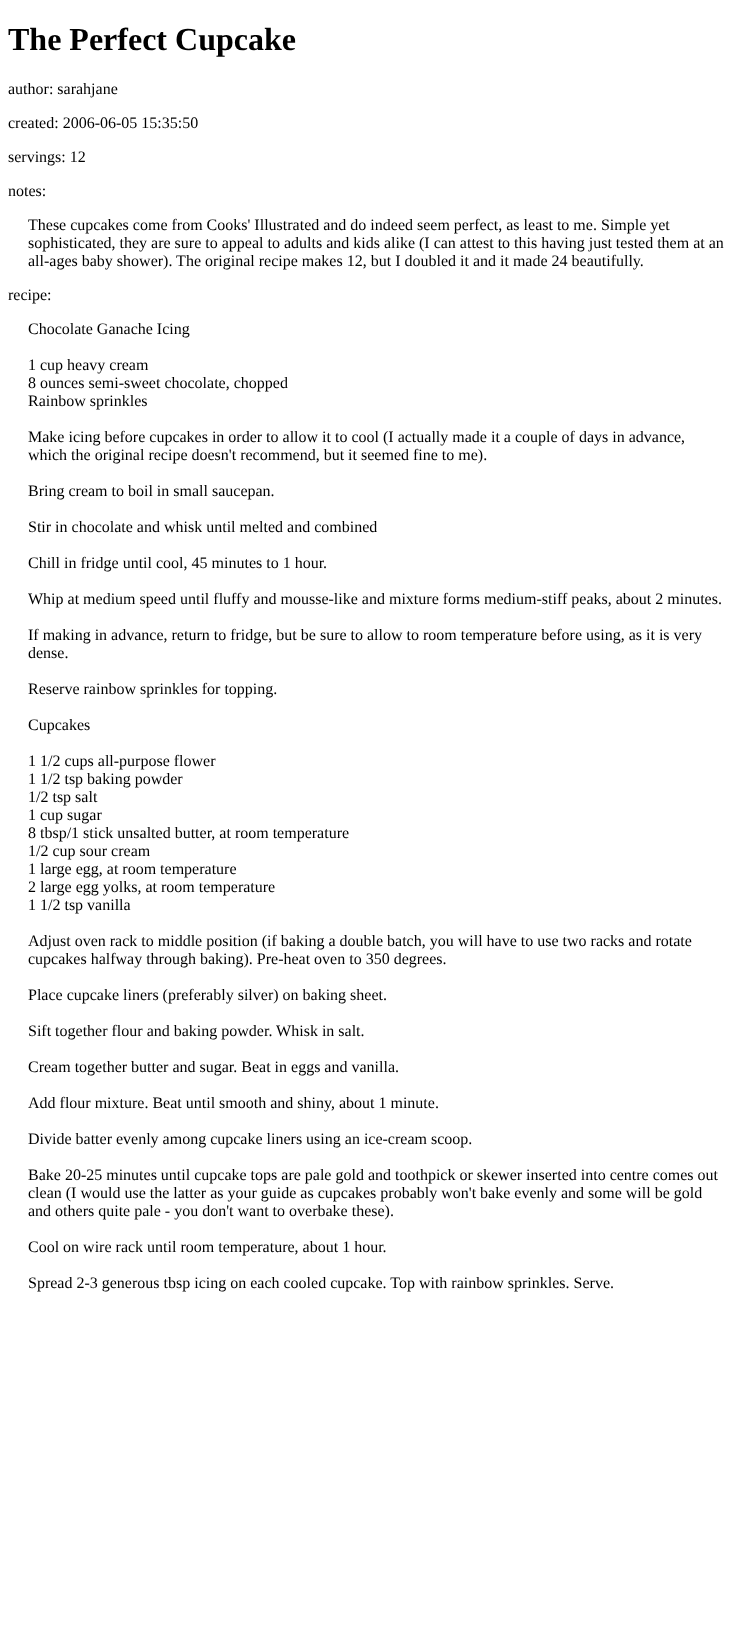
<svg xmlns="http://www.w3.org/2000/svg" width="732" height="1632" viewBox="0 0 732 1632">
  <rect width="100%" height="100%" fill="#fff"/>
  <text x="8" y="50" font-family="Liberation Serif" font-size="32" font-weight="bold" fill="#000">The Perfect Cupcake</text>
  <g font-family="Liberation Serif" font-size="16" fill="#000">
    <text x="8" y="94">author: sarahjane</text>
    <text x="8" y="128">created: 2006-06-05 15:35:50</text>
    <text x="8" y="162">servings: 12</text>
    <text x="8" y="196">notes:</text>
    <text x="28" y="230">These cupcakes come from Cooks' Illustrated and do indeed seem perfect, as least to me. Simple yet</text>
    <text x="28" y="248">sophisticated, they are sure to appeal to adults and kids alike (I can attest to this having just tested them at an</text>
    <text x="28" y="266">all-ages baby shower). The original recipe makes 12, but I doubled it and it made 24 beautifully.</text>
    <text x="8" y="300">recipe:</text>
    <text x="28" y="334">Chocolate Ganache Icing</text>
    <text x="28" y="370">1 cup heavy cream</text>
    <text x="28" y="388">8 ounces semi-sweet chocolate, chopped</text>
    <text x="28" y="406">Rainbow sprinkles</text>
    <text x="28" y="442">Make icing before cupcakes in order to allow it to cool (I actually made it a couple of days in advance,</text>
    <text x="28" y="460">which the original recipe doesn't recommend, but it seemed fine to me).</text>
    <text x="28" y="496">Bring cream to boil in small saucepan.</text>
    <text x="28" y="532">Stir in chocolate and whisk until melted and combined</text>
    <text x="28" y="568">Chill in fridge until cool, 45 minutes to 1 hour.</text>
    <text x="28" y="604">Whip at medium speed until fluffy and mousse-like and mixture forms medium-stiff peaks, about 2 minutes.</text>
    <text x="28" y="640">If making in advance, return to fridge, but be sure to allow to room temperature before using, as it is very</text>
    <text x="28" y="658">dense.</text>
    <text x="28" y="694">Reserve rainbow sprinkles for topping.</text>
    <text x="28" y="730">Cupcakes</text>
    <text x="28" y="766">1 1/2 cups all-purpose flower</text>
    <text x="28" y="784">1 1/2 tsp baking powder</text>
    <text x="28" y="802">1/2 tsp salt</text>
    <text x="28" y="820">1 cup sugar</text>
    <text x="28" y="838">8 tbsp/1 stick unsalted butter, at room temperature</text>
    <text x="28" y="856">1/2 cup sour cream</text>
    <text x="28" y="874">1 large egg, at room temperature</text>
    <text x="28" y="892">2 large egg yolks, at room temperature</text>
    <text x="28" y="910">1 1/2 tsp vanilla</text>
    <text x="28" y="946">Adjust oven rack to middle position (if baking a double batch, you will have to use two racks and rotate</text>
    <text x="28" y="964">cupcakes halfway through baking). Pre-heat oven to 350 degrees.</text>
    <text x="28" y="1000">Place cupcake liners (preferably silver) on baking sheet.</text>
    <text x="28" y="1036">Sift together flour and baking powder. Whisk in salt.</text>
    <text x="28" y="1072">Cream together butter and sugar. Beat in eggs and vanilla.</text>
    <text x="28" y="1108">Add flour mixture. Beat until smooth and shiny, about 1 minute.</text>
    <text x="28" y="1144">Divide batter evenly among cupcake liners using an ice-cream scoop.</text>
    <text x="28" y="1180">Bake 20-25 minutes until cupcake tops are pale gold and toothpick or skewer inserted into centre comes out</text>
    <text x="28" y="1198">clean (I would use the latter as your guide as cupcakes probably won't bake evenly and some will be gold</text>
    <text x="28" y="1216">and others quite pale - you don't want to overbake these).</text>
    <text x="28" y="1252">Cool on wire rack until room temperature, about 1 hour.</text>
    <text x="28" y="1288">Spread 2-3 generous tbsp icing on each cooled cupcake. Top with rainbow sprinkles. Serve.</text>
  </g>
</svg>
